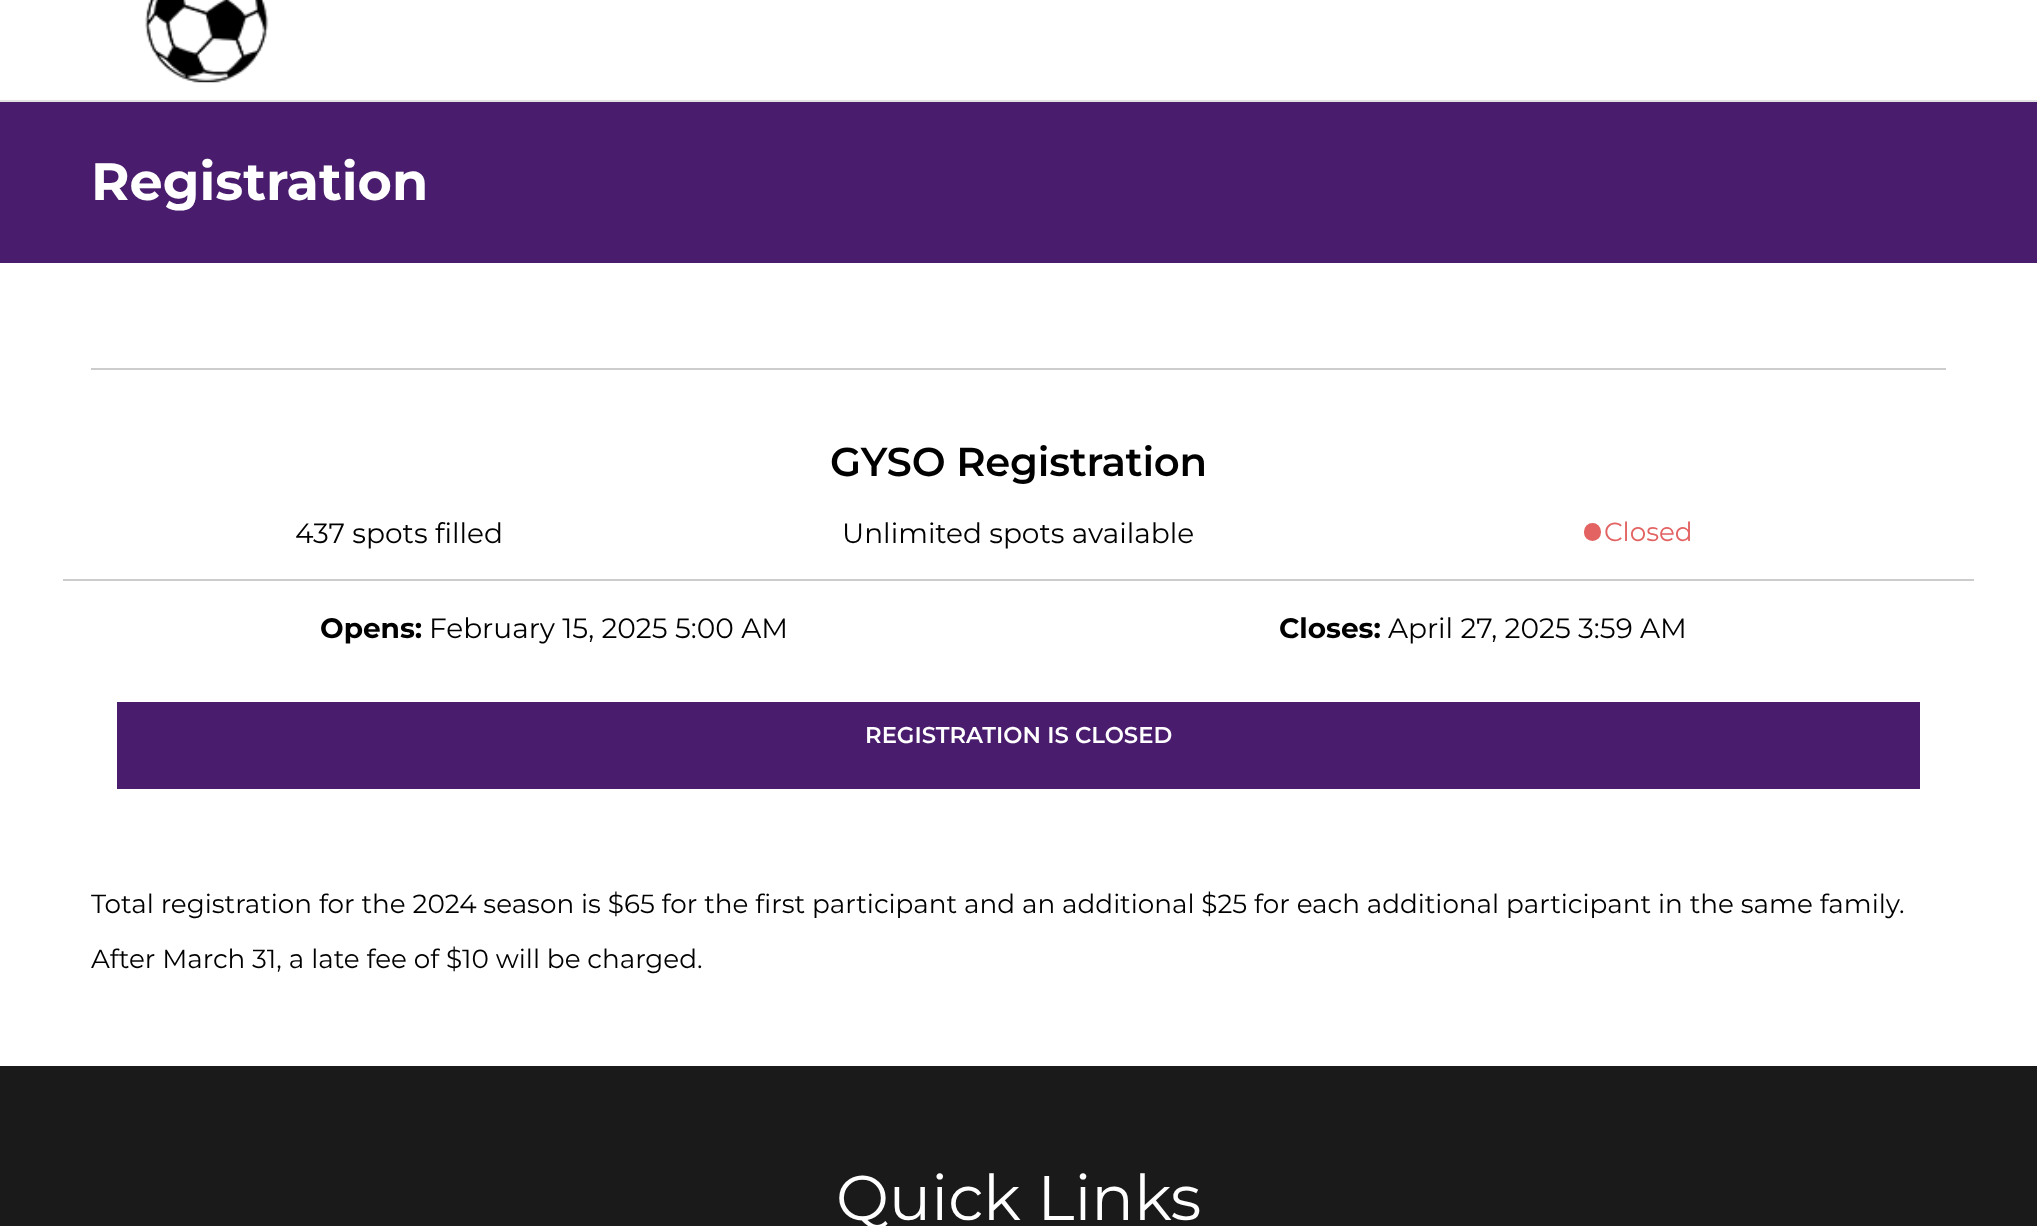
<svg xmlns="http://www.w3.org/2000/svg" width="2037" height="1226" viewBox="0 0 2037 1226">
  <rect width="100%" height="100%" fill="#fff"/>
  <path d="M0 100h2037v2H0z" fill="#e1e1e1"/>
  <image x="145" y="0" width="124" height="83" href="img/1.png"/>
  <path d="M0 102h2037v161H0z" fill="#491c6d"/>
  <path d="M91 368h1855v2H91z" fill="#ccc"/>
  <path d="M63 579h1911v2H63z" fill="#ccc"/>
  <rect x="1584" y="523" width="17" height="18" rx="8.5" fill="#e26362"/>
  <path d="M117 702h1803v87H117z" fill="#491c6d"/>
  <path d="M0 1066h2037v160H0z" fill="#1a1a1a"/>
  <text x="91" y="200" font-family="Montserrat" font-size="52.5" font-weight="bold" fill="#fff">Registration</text>
  <text x="830" y="476" font-family="Montserrat" font-size="40.25" font-weight="600" letter-spacing="-0.25" fill="#000">GYSO Registration</text>
  <g font-family="Montserrat" font-size="28" fill="#000">
    <text x="295" y="543">437 spots filled</text>
    <text x="842" y="543">Unlimited spots available</text>
  </g>
  <text x="1604" y="541" font-family="Montserrat" font-size="26.25" fill="#e26362">Closed</text>
  <text x="320" y="638" font-family="Montserrat" font-size="28" font-weight="bold" fill="#000">Opens:</text>
  <text x="429" y="638" font-family="Montserrat" font-size="28" fill="#000">February 15, 2025 5:00 AM</text>
  <text x="1279" y="638" font-family="Montserrat" font-size="28" font-weight="bold" fill="#000">Closes:</text>
  <text x="1388" y="638" font-family="Montserrat" font-size="28" fill="#000">April 27, 2025 3:59 AM</text>
  <text x="865" y="743" font-family="Montserrat" font-size="22.75" font-weight="600" fill="#fff">REGISTRATION IS CLOSED</text>
  <g font-family="Montserrat" font-size="26.25" fill="#000">
    <text x="91" y="913">Total registration for the 2024 season is $65 for the first participant and an additional $25 for each additional participant in the same family.</text>
    <text x="91" y="968">After March 31, a late fee of $10 will be charged.</text>
  </g>
  <text x="836" y="1220" font-family="Montserrat" font-size="63" fill="#fff">Quick Links</text>
</svg>
